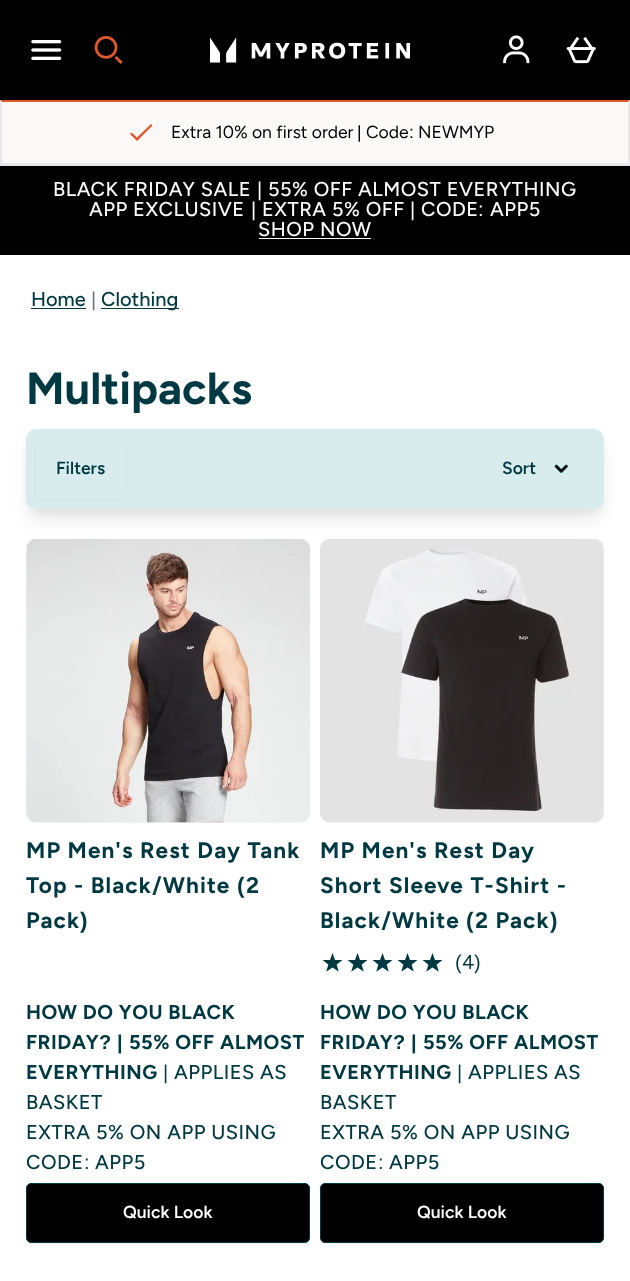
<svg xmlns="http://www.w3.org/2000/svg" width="630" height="1281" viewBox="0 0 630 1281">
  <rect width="100%" height="100%" fill="#fff"/>
  <path d="M0 0h630v100H0z" fill="#000"/>
  <image x="31" y="40" width="31" height="20" href="img/1.png"/>
  <image x="94" y="36" width="29" height="28" href="img/2.png"/>
  <image x="210" y="37" width="200" height="26" href="img/3.png"/>
  <image x="503" y="35" width="27" height="29" href="img/4.png"/>
  <image x="566" y="37" width="30" height="27" href="img/5.png"/>
  <path d="M0 100h630v63H0z" fill="#fbf9f7"/>
  <path d="M0 100H630L628 102H2Z" fill="#dd592b"/>
  <path d="M630 100V165L628 162V102Z" fill="#e5e7eb"/>
  <path d="M0 163h630v3H0z" fill="#e5e7eb"/>
  <path d="M0 165V100L2 102V162Z" fill="#e5e7eb"/>
  <path d="M151 124L152.5 125.5L137 141L130 134L131.5 132.5L137 137.5Z" fill="#dd592b"/>
  <path d="M0 166h630v89H0z" fill="#000"/>
  <path d="M259 238h112v1H259z" fill="#fbf9f7"/>
  <path d="M31 308h55v1H31z" fill="#003942"/>
  <path d="M101 308h78v1H101z" fill="#003942"/>
  <rect x="26" y="539" width="284" height="284" rx="10" fill="#f3f4f6"/>
  <image x="26" y="539" width="284" height="284" href="img/7.png"/>
  <rect x="320" y="539" width="284" height="284" rx="10" fill="#f3f4f6"/>
  <image x="320" y="539" width="284" height="284" href="img/8.png"/>
  <rect x="30" y="445" width="570" height="73" rx="6" fill="#0000001a" filter="blur(9.5px)"/>
  <rect x="29" y="436" width="572" height="75" rx="8" fill="#0000000d" filter="blur(4px)"/>
  <rect x="26" y="429" width="578" height="80" rx="10" fill="#d8ecee"/>
  <rect x="36" y="440" width="89" height="60" rx="5" fill="#0000000d" filter="blur(1px)"/>
  <rect x="36" y="439" width="89" height="60" rx="5" fill="#d8ecee"/>
  <image x="554" y="464" width="14" height="9" href="img/6.png"/>
  <rect x="26" y="1184" width="284" height="60" rx="5" fill="#0000000d" filter="blur(1px)"/>
  <rect x="26.5" y="1183.5" width="283" height="59" rx="4.5" fill="#000" stroke="#003942"/>
  <image x="322" y="953" width="21" height="19" href="img/9.png"/>
  <image x="347" y="953" width="21" height="19" href="img/9.png"/>
  <image x="372" y="953" width="21" height="19" href="img/9.png"/>
  <image x="397" y="953" width="21" height="19" href="img/9.png"/>
  <image x="422" y="953" width="21" height="19" href="img/9.png"/>
  <rect x="320" y="1184" width="284" height="60" rx="5" fill="#0000000d" filter="blur(1px)"/>
  <rect x="320.5" y="1183.5" width="283" height="59" rx="4.5" fill="#000" stroke="#003942"/>
  <text x="171" y="138" font-family="Figtree" font-size="17.5" fill="#000">Extra 10% on first order</text>
  <text x="357" y="138" font-family="Liberation Sans" font-size="17.5" fill="#000">|</text>
  <text x="366" y="138" font-family="Figtree" font-size="17.5" fill="#000">Code</text>
  <text x="409" y="138" font-family="Liberation Sans" font-size="17.5" fill="#000">:</text>
  <text x="418" y="138" font-family="Figtree" font-size="17.5" fill="#000">NEWMYP</text>
  <text x="53" y="196" font-family="Figtree" font-size="20" font-weight="500" letter-spacing="0.5" fill="#fbf9f7">BLACK FRIDAY SALE</text>
  <text x="257" y="196" font-family="Liberation Sans" font-size="20" letter-spacing="0.5" fill="#fbf9f7">|</text>
  <g font-family="Figtree" font-size="20" font-weight="500" letter-spacing="0.5" fill="#fbf9f7">
    <text x="268" y="196">55% OFF ALMOST EVERYTHING</text>
    <text x="89" y="216">APP EXCLUSIVE</text>
  </g>
  <text x="251" y="216" font-family="Liberation Sans" font-size="20" letter-spacing="0.5" fill="#fbf9f7">|</text>
  <text x="262" y="216" font-family="Figtree" font-size="20" font-weight="500" letter-spacing="0.5" fill="#fbf9f7">EXTRA 5% OFF</text>
  <text x="410" y="216" font-family="Liberation Sans" font-size="20" letter-spacing="0.5" fill="#fbf9f7">|</text>
  <text x="421" y="216" font-family="Figtree" font-size="20" font-weight="500" letter-spacing="0.5" fill="#fbf9f7">CODE</text>
  <text x="478" y="216" font-family="Liberation Sans" font-size="20" letter-spacing="0.5" fill="#fbf9f7">:</text>
  <g font-family="Figtree" font-size="20" font-weight="500" letter-spacing="0.5" fill="#fbf9f7">
    <text x="490" y="216">APP5</text>
    <text x="258" y="236">SHOP NOW</text>
  </g>
  <text x="31" y="306" font-family="Figtree" font-size="20" font-weight="500" fill="#003942">Home</text>
  <text x="91" y="306" font-family="Liberation Sans" font-size="20" fill="#6b7280">|</text>
  <text x="101" y="306" font-family="Figtree" font-size="20" font-weight="500" fill="#003942">Clothing</text>
  <text x="26" y="404" font-family="Figtree" font-size="45" font-weight="bold" fill="#003942">Multipacks</text>
  <g font-family="Figtree" font-size="17.5" font-weight="600" fill="#003942">
    <text x="56" y="474">Filters</text>
    <text x="502" y="474">Sort</text>
  </g>
  <g font-family="Figtree" font-size="22.5" font-weight="bold" letter-spacing="1.1" fill="#003942">
    <text x="26" y="858">MP Men's Rest Day Tank</text>
    <text x="26" y="893">Top - Black/White</text>
  </g>
  <text x="237" y="893" font-family="Liberation Sans" font-size="22.5" font-weight="bold" letter-spacing="1.1" fill="#003942">(</text>
  <g font-family="Figtree" font-size="22.5" font-weight="bold" letter-spacing="1.1" fill="#003942">
    <text x="246" y="893">2</text>
    <text x="26" y="928">Pack</text>
  </g>
  <text x="80" y="928" font-family="Liberation Sans" font-size="22.5" font-weight="bold" letter-spacing="1.1" fill="#003942">)</text>
  <g font-family="Figtree" font-size="20" font-weight="bold" letter-spacing="0.5" fill="#003942">
    <text x="26" y="1019">HOW DO YOU BLACK</text>
    <text x="26" y="1049">FRIDAY</text>
  </g>
  <g font-family="Liberation Sans" font-size="20" font-weight="bold" letter-spacing="0.5" fill="#003942">
    <text x="99" y="1049">?</text>
    <text x="117" y="1049">|</text>
  </g>
  <g font-family="Figtree" font-size="20" font-weight="bold" letter-spacing="0.5" fill="#003942">
    <text x="129" y="1049">55% OFF ALMOST</text>
    <text x="26" y="1079">EVERYTHING</text>
  </g>
  <text x="163" y="1079" font-family="Liberation Sans" font-size="20" letter-spacing="0.5" fill="#003942">|</text>
  <g font-family="Figtree" font-size="20" font-weight="500" letter-spacing="0.5" fill="#003942">
    <text x="174" y="1079">APPLIES AS</text>
    <text x="26" y="1109">BASKET</text>
    <text x="26" y="1139">EXTRA 5% ON APP USING</text>
    <text x="26" y="1169">CODE</text>
  </g>
  <text x="84" y="1169" font-family="Liberation Sans" font-size="20" letter-spacing="0.5" fill="#003942">:</text>
  <text x="95" y="1169" font-family="Figtree" font-size="20" font-weight="500" letter-spacing="0.5" fill="#003942">APP5</text>
  <text x="123" y="1218" font-family="Figtree" font-size="17.5" font-weight="600" fill="#fff">Quick Look</text>
  <g font-family="Figtree" font-size="22.5" font-weight="bold" letter-spacing="1.1" fill="#003942">
    <text x="320" y="858">MP Men's Rest Day</text>
    <text x="320" y="893">Short Sleeve T-Shirt -</text>
    <text x="320" y="928">Black/White</text>
  </g>
  <text x="466" y="928" font-family="Liberation Sans" font-size="22.5" font-weight="bold" letter-spacing="1.1" fill="#003942">(</text>
  <text x="475" y="928" font-family="Figtree" font-size="22.5" font-weight="bold" letter-spacing="1.1" fill="#003942">2 Pack</text>
  <text x="550" y="928" font-family="Liberation Sans" font-size="22.5" font-weight="bold" letter-spacing="1.1" fill="#003942">)</text>
  <text x="455" y="969" font-family="Liberation Sans" font-size="20" fill="#003942">(</text>
  <text x="462" y="969" font-family="Figtree" font-size="20" fill="#003942">4</text>
  <text x="474" y="969" font-family="Liberation Sans" font-size="20" fill="#003942">)</text>
  <g font-family="Figtree" font-size="20" font-weight="bold" letter-spacing="0.5" fill="#003942">
    <text x="320" y="1019">HOW DO YOU BLACK</text>
    <text x="320" y="1049">FRIDAY</text>
  </g>
  <g font-family="Liberation Sans" font-size="20" font-weight="bold" letter-spacing="0.5" fill="#003942">
    <text x="393" y="1049">?</text>
    <text x="411" y="1049">|</text>
  </g>
  <g font-family="Figtree" font-size="20" font-weight="bold" letter-spacing="0.5" fill="#003942">
    <text x="423" y="1049">55% OFF ALMOST</text>
    <text x="320" y="1079">EVERYTHING</text>
  </g>
  <text x="457" y="1079" font-family="Liberation Sans" font-size="20" letter-spacing="0.5" fill="#003942">|</text>
  <g font-family="Figtree" font-size="20" font-weight="500" letter-spacing="0.5" fill="#003942">
    <text x="468" y="1079">APPLIES AS</text>
    <text x="320" y="1109">BASKET</text>
    <text x="320" y="1139">EXTRA 5% ON APP USING</text>
    <text x="320" y="1169">CODE</text>
  </g>
  <text x="378" y="1169" font-family="Liberation Sans" font-size="20" letter-spacing="0.5" fill="#003942">:</text>
  <text x="389" y="1169" font-family="Figtree" font-size="20" font-weight="500" letter-spacing="0.5" fill="#003942">APP5</text>
  <text x="417" y="1218" font-family="Figtree" font-size="17.5" font-weight="600" fill="#fff">Quick Look</text>
</svg>
